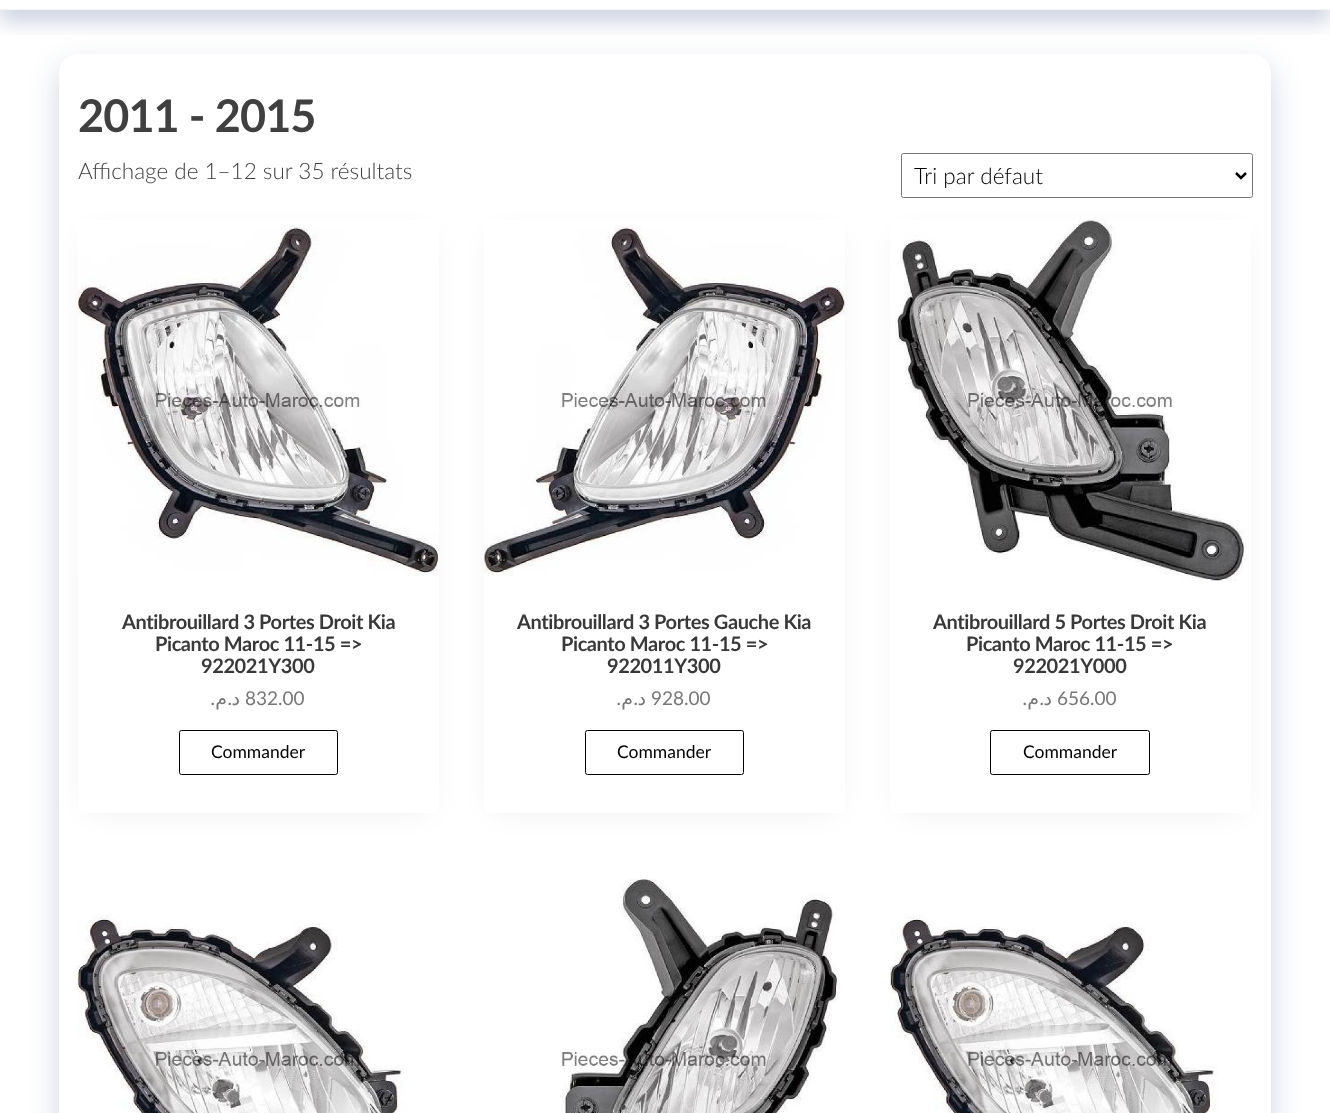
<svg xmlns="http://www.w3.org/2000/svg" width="1330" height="1113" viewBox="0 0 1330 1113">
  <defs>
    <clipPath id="clip1"><path d="M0 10h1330v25H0z"/></clipPath>
    <clipPath id="clip2"><path d="M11 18H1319V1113H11ZM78 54H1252C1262.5 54 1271 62.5 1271 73V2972C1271 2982.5 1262.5 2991 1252 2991H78C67.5 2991 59 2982.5 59 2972V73C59 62.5 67.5 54 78 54Z" clip-rule="evenodd"/></clipPath>
  </defs>
  <rect width="100%" height="100%" fill="#fff"/>
  <g clip-path="url(#clip1)">
    <path d="M0 -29h1330v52H0z" fill="#192d7833" filter="blur(9.5px)"/>
  </g>
  <path d="M0 9h1330v1H0z" fill="#f6f6f6"/>
  <g clip-path="url(#clip2)">
    <rect x="59" y="66" width="1212" height="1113" rx="19" fill="#192d6e33" filter="blur(15.5px)"/>
  </g>
  <rect x="901.5" y="153.5" width="351" height="44" rx="2" fill="none" stroke="#767676"/>
  <path d="M1236 173L1241 178L1246 173" fill="none" stroke="#000" stroke-width="2.5"/>
  <path d="M90 239h336v567H90z" fill="#0000001a" filter="blur(15.5px)"/>
  <rect x="78" y="220" width="361" height="593" rx="6" fill="#fff"/>
  <image x="77" y="225" width="362" height="351" href="img/1.png"/>
  <rect x="179.5" y="730.5" width="158" height="44" rx="2" fill="none" stroke="#000"/>
  <path d="M496 239h337v567H496z" fill="#0000001a" filter="blur(15.5px)"/>
  <rect x="484" y="220" width="361" height="593" rx="6" fill="#fff"/>
  <image x="483" y="225" width="362" height="351" href="img/2.png"/>
  <rect x="585.5" y="730.5" width="158" height="44" rx="2" fill="none" stroke="#000"/>
  <path d="M903 239h336v567H903z" fill="#0000001a" filter="blur(15.5px)"/>
  <rect x="890" y="220" width="361" height="593" rx="6" fill="#fff"/>
  <image x="895" y="220" width="352" height="361" href="img/3.png"/>
  <rect x="990.5" y="730.5" width="159" height="44" rx="2" fill="none" stroke="#000"/>
  <image x="77" y="914" width="330" height="199" href="img/4.png"/>
  <image x="561" y="878" width="279" height="235" href="img/5.png"/>
  <image x="890" y="913" width="329" height="200" href="img/6.png"/>
  <text x="78" y="132" font-family="Lato" font-size="45" font-weight="bold" letter-spacing="-0.9" fill="#404040">2011 - 2015</text>
  <text x="78" y="179" font-family="Lato" font-size="22.5" font-weight="300" fill="#404040">Affichage de 1–12 sur 35 résultats</text>
  <text x="914" y="184" font-family="Lato" font-size="22.5" font-weight="300" fill="#000">Tri par défaut</text>
  <g font-family="Lato" font-size="20" font-weight="bold" letter-spacing="-0.4" fill="#39393a">
    <text x="122" y="629">Antibrouillard 3 Portes Droit Kia</text>
    <text x="155" y="651">Picanto Maroc 11-15 =&gt;</text>
    <text x="201" y="673">922021Y300</text>
  </g>
  <text x="215" y="705" font-family="Lato" font-size="19" direction="rtl" fill="#777">.</text>
  <text x="227" y="705" font-family="DejaVu Sans" font-size="19" direction="rtl" fill="#777">م</text>
  <text x="232" y="705" font-family="Lato" font-size="19" direction="rtl" fill="#777">.</text>
  <text x="240" y="705" font-family="DejaVu Sans" font-size="19" direction="rtl" fill="#777">د</text>
  <text x="245" y="705" font-family="Lato" font-size="19" fill="#777">832.00</text>
  <text x="211" y="758" font-family="Lato" font-size="17.5" fill="#000">Commander</text>
  <g font-family="Lato" font-size="20" font-weight="bold" letter-spacing="-0.4" fill="#39393a">
    <text x="517" y="629">Antibrouillard 3 Portes Gauche Kia</text>
    <text x="561" y="651">Picanto Maroc 11-15 =&gt;</text>
    <text x="607" y="673">922011Y300</text>
  </g>
  <text x="621" y="705" font-family="Lato" font-size="19" direction="rtl" fill="#777">.</text>
  <text x="633" y="705" font-family="DejaVu Sans" font-size="19" direction="rtl" fill="#777">م</text>
  <text x="638" y="705" font-family="Lato" font-size="19" direction="rtl" fill="#777">.</text>
  <text x="646" y="705" font-family="DejaVu Sans" font-size="19" direction="rtl" fill="#777">د</text>
  <text x="651" y="705" font-family="Lato" font-size="19" fill="#777">928.00</text>
  <text x="617" y="758" font-family="Lato" font-size="17.5" fill="#000">Commander</text>
  <g font-family="Lato" font-size="20" font-weight="bold" letter-spacing="-0.4" fill="#39393a">
    <text x="933" y="629">Antibrouillard 5 Portes Droit Kia</text>
    <text x="966" y="651">Picanto Maroc 11-15 =&gt;</text>
    <text x="1013" y="673">922021Y000</text>
  </g>
  <text x="1027" y="705" font-family="Lato" font-size="19" direction="rtl" fill="#777">.</text>
  <text x="1039" y="705" font-family="DejaVu Sans" font-size="19" direction="rtl" fill="#777">م</text>
  <text x="1044" y="705" font-family="Lato" font-size="19" direction="rtl" fill="#777">.</text>
  <text x="1052" y="705" font-family="DejaVu Sans" font-size="19" direction="rtl" fill="#777">د</text>
  <text x="1057" y="705" font-family="Lato" font-size="19" fill="#777">656.00</text>
  <text x="1023" y="758" font-family="Lato" font-size="17.5" fill="#000">Commander</text>
</svg>
